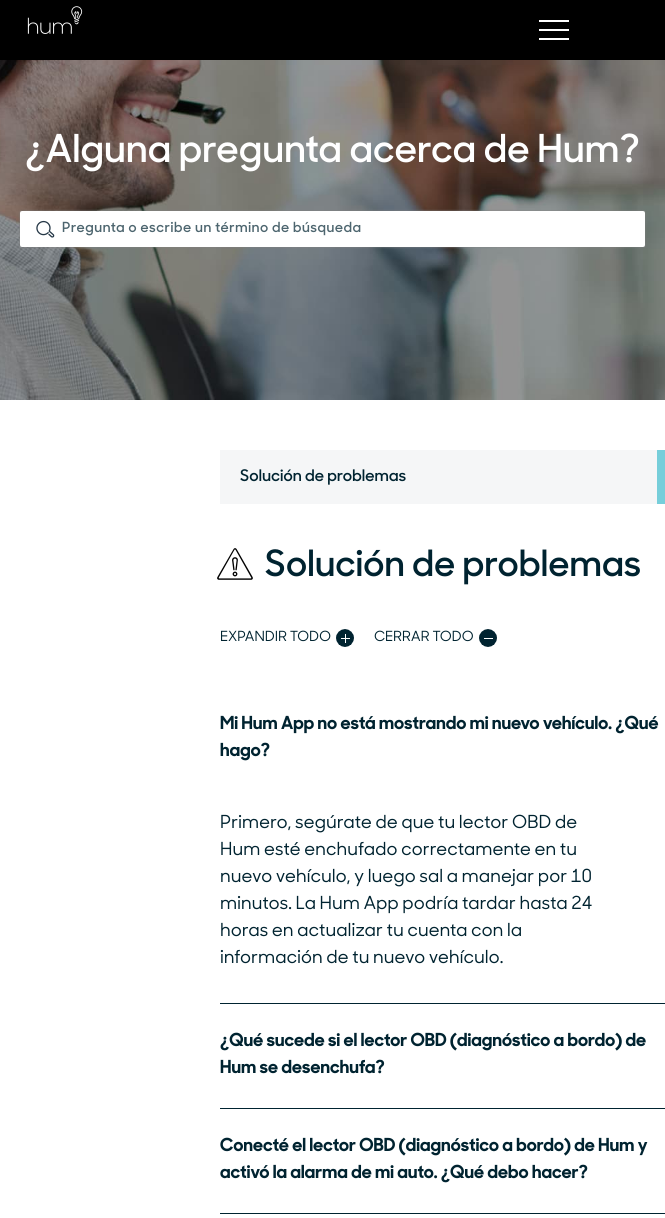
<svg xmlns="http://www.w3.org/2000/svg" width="665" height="1218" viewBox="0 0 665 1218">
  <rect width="100%" height="100%" fill="#fff"/>
  <path d="M0 0h665v60H0z" fill="#000"/>
  <image x="27" y="6" width="56" height="28" href="img/1.png"/>
  <path d="M539 20h30v2H539z" fill="#fff"/>
  <path d="M539 29h30v2H539z" fill="#fff"/>
  <path d="M539 38h30v2H539z" fill="#fff"/>
  <image x="0" y="60" width="665" height="340" href="img/2.png"/>
  <image x="26" y="133" width="613" height="39" href="img/3.png"/>
  <rect x="20" y="211" width="625" height="36" rx="2" fill="#808080" filter="blur(1px)"/>
  <rect x="20" y="211" width="625" height="36" rx="2" fill="#fff"/>
  <image x="36" y="220" width="19" height="18" href="img/4.png"/>
  <image x="62" y="221" width="299" height="15" href="img/5.png"/>
  <path d="M220 450h437v54H220z" fill="#f5f6f7"/>
  <image x="240" y="469" width="166" height="16" href="img/6.png"/>
  <path d="M657 450h8v54H657z" fill="#76ceda"/>
  <image x="217" y="548" width="36" height="32" href="img/7.png"/>
  <image x="265" y="549" width="375" height="36" href="img/8.png"/>
  <image x="221" y="630" width="110" height="12" href="img/9.png"/>
  <circle cx="345" cy="638" r="9" fill="#002330"/>
  <path d="M345 634h1v9H345z" fill="#fff"/>
  <path d="M341 638h9v1H341z" fill="#fff"/>
  <image x="374" y="630" width="99" height="12" href="img/10.png"/>
  <circle cx="488" cy="638" r="9" fill="#002330"/>
  <path d="M484 638h9v1H484z" fill="#fff"/>
  <path d="M220 1003h445v1H220z" fill="#002330"/>
  <image x="220" y="715" width="439" height="19" href="img/11.png"/>
  <image x="220" y="742" width="50" height="19" href="img/12.png"/>
  <image x="221" y="814" width="356" height="19" href="img/13.png"/>
  <image x="221" y="841" width="355" height="15" href="img/14.png"/>
  <image x="221" y="868" width="370" height="19" href="img/15.png"/>
  <image x="221" y="895" width="371" height="19" href="img/16.png"/>
  <image x="221" y="922" width="300" height="15" href="img/17.png"/>
  <image x="220" y="949" width="283" height="15" href="img/18.png"/>
  <path d="M220 1108h445v1H220z" fill="#002330"/>
  <image x="220" y="1032" width="426" height="19" href="img/19.png"/>
  <image x="220" y="1059" width="165" height="15" href="img/20.png"/>
  <path d="M220 1213h445v1H220z" fill="#002330"/>
  <image x="220" y="1137" width="428" height="19" href="img/21.png"/>
  <image x="220" y="1164" width="368" height="19" href="img/22.png"/>
</svg>
